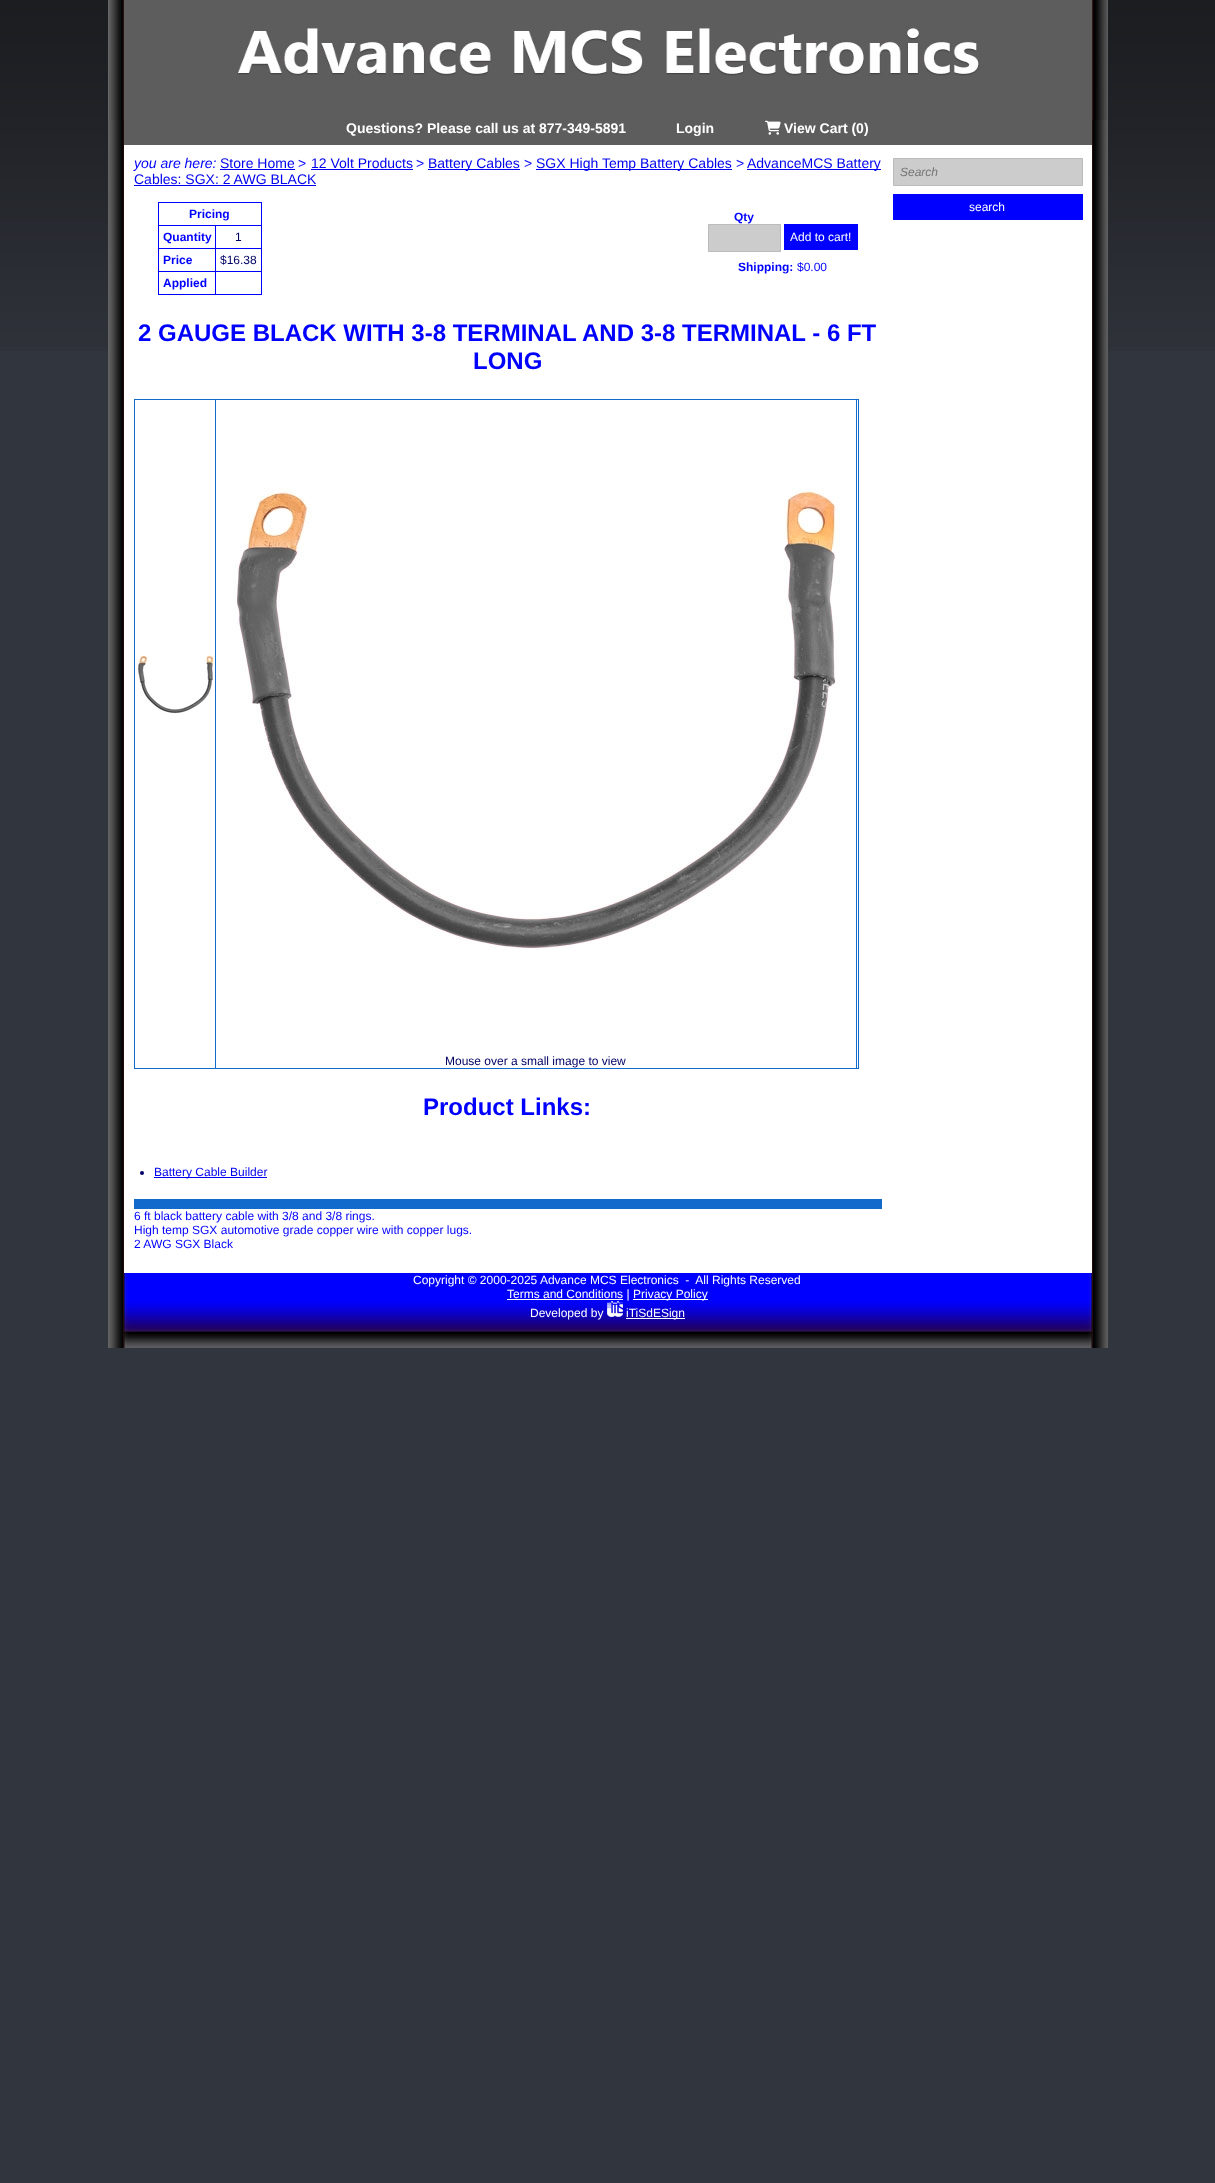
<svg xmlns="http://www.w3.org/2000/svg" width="1215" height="2183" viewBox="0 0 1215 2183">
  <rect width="100%" height="100%" fill="#31353d"/>
  <image x="0" y="0" width="1215" height="351" href="img/1.png"/>
  <image x="108" y="0" width="1000" height="1348" href="img/2.png"/>
  <image x="108" y="0" width="999" height="120" href="img/3.png"/>
  <path d="M124 120h968v25H124z" fill="#5d5d5d"/>
  <image x="765" y="120" width="16" height="15" href="img/4.png"/>
  <path d="M220 169h75v1H220z" fill="#00e"/>
  <path d="M311 169h102v1H311z" fill="#00e"/>
  <path d="M428 169h92v1H428z" fill="#00e"/>
  <path d="M536 169h196v1H536z" fill="#00e"/>
  <path d="M747 169h134v1H747z" fill="#00e"/>
  <path d="M134 185h182v1H134z" fill="#00e"/>
  <path d="M158 202h104v1H158z" fill="#00f"/>
  <path d="M261 202h1v93H261z" fill="#00f"/>
  <path d="M158 294h104v1H158z" fill="#00f"/>
  <path d="M158 202h1v93H158z" fill="#00f"/>
  <path d="M215 225h47v1H215z" fill="#00f"/>
  <path d="M215 248h47v1H215z" fill="#00f"/>
  <path d="M215 271h47v1H215z" fill="#00f"/>
  <path d="M215 271h1v24H215z" fill="#00f"/>
  <path d="M158 271h58v1H158z" fill="#00f"/>
  <path d="M215 248h1v24H215z" fill="#00f"/>
  <path d="M158 248h58v1H158z" fill="#00f"/>
  <path d="M215 225h1v24H215z" fill="#00f"/>
  <path d="M158 225h58v1H158z" fill="#00f"/>
  <path d="M708.5 224.5h72v27H708.5z" fill="#ccc" stroke="#bbb"/>
  <path d="M784 224h74v26H784z" fill="#00f"/>
  <path d="M134 399h725v670H134z" fill="#136acd"/>
  <path d="M135 400h80v668H135z" fill="#fff"/>
  <image x="138" y="655" width="76" height="59" href="img/5.png"/>
  <path d="M216 400h640v668H216z" fill="#fff"/>
  <image x="233" y="488" width="607" height="462" href="img/6.png"/>
  <path d="M857 400h1v668H857z" fill="#fff"/>
  <circle cx="142" cy="1173" r="2" fill="#006"/>
  <path d="M154 1177h113v1H154z" fill="#00e"/>
  <path d="M134 1199h748v10H134z" fill="#136acd"/>
  <path d="M893.5 158.5h189v27H893.5z" fill="#ccc" stroke="#bbb"/>
  <path d="M893 194h190v26H893z" fill="#00f"/>
  <image x="124" y="1273" width="968" height="75" href="img/7.png"/>
  <path d="M507 1299h116v1H507z" fill="#fff"/>
  <path d="M633 1299h75v1H633z" fill="#fff"/>
  <image x="607" y="1301" width="16" height="16" href="img/8.png"/>
  <path d="M626 1318h59v1H626z" fill="#fff"/>
  <g font-family="Liberation Sans" font-size="14" font-weight="bold" fill="#fff">
    <text x="346" y="133">Questions? Please call us at 877-349-5891</text>
    <text x="676" y="133">Login</text>
    <text x="784" y="133">View Cart (0)</text>
  </g>
  <text x="134" y="168" font-family="Liberation Sans" font-size="14" font-style="italic" fill="#00f">you are here:</text>
  <text x="220" y="168" font-family="Liberation Sans" font-size="14" fill="#00e">Store Home</text>
  <text x="298" y="168" font-family="Liberation Sans" font-size="14" fill="#00f">&gt;</text>
  <text x="311" y="168" font-family="Liberation Sans" font-size="14" fill="#00e">12 Volt Products</text>
  <text x="416" y="168" font-family="Liberation Sans" font-size="14" fill="#00f">&gt;</text>
  <text x="428" y="168" font-family="Liberation Sans" font-size="14" fill="#00e">Battery Cables</text>
  <text x="524" y="168" font-family="Liberation Sans" font-size="14" fill="#00f">&gt;</text>
  <text x="536" y="168" font-family="Liberation Sans" font-size="14" fill="#00e">SGX High Temp Battery Cables</text>
  <text x="736" y="168" font-family="Liberation Sans" font-size="14" fill="#00f">&gt;</text>
  <g font-family="Liberation Sans" font-size="14" fill="#00e">
    <text x="747" y="168">AdvanceMCS Battery</text>
    <text x="134" y="184">Cables: SGX: 2 AWG BLACK</text>
  </g>
  <g font-family="Liberation Sans" font-size="12" font-weight="bold" fill="#00f">
    <text x="189" y="218">Pricing</text>
    <text x="163" y="241">Quantity</text>
  </g>
  <text x="235" y="241" font-family="Liberation Sans" font-size="12" fill="#006">1</text>
  <text x="163" y="264" font-family="Liberation Sans" font-size="12" font-weight="bold" fill="#00f">Price</text>
  <text x="220" y="264" font-family="Liberation Sans" font-size="12" fill="#006">$16.38</text>
  <g font-family="Liberation Sans" font-size="12" font-weight="bold" fill="#00f">
    <text x="163" y="287">Applied</text>
    <text x="734" y="221">Qty</text>
  </g>
  <text x="790" y="241" font-family="Liberation Sans" font-size="12" fill="#fff">Add to cart!</text>
  <text x="738" y="271" font-family="Liberation Sans" font-size="12" font-weight="bold" fill="#00f">Shipping:</text>
  <text x="797" y="271" font-family="Liberation Sans" font-size="12" fill="#00f">$0.00</text>
  <g font-family="Liberation Sans" font-size="24" font-weight="bold" fill="#00f">
    <text x="138" y="341">2 GAUGE BLACK WITH 3-8 TERMINAL AND 3-8 TERMINAL - 6 FT</text>
    <text x="473" y="369">LONG</text>
  </g>
  <text x="445" y="1065" font-family="Liberation Sans" font-size="12" fill="#006">Mouse over a small image to view</text>
  <text x="423" y="1115" font-family="Liberation Sans" font-size="24" font-weight="bold" fill="#00f">Product Links:</text>
  <text x="154" y="1176" font-family="Liberation Sans" font-size="12" fill="#00e">Battery Cable Builder</text>
  <g font-family="Liberation Sans" font-size="12" fill="#00f">
    <text x="134" y="1220">6 ft black battery cable with 3/8 and 3/8 rings.</text>
    <text x="134" y="1234">High temp SGX automotive grade copper wire with copper lugs.</text>
    <text x="134" y="1248">2 AWG SGX Black</text>
  </g>
  <text x="900" y="176" font-family="Liberation Sans" font-size="12" font-style="italic" fill="#757575">Search</text>
  <g font-family="Liberation Sans" font-size="12" fill="#fff">
    <text x="969" y="211">search</text>
    <text x="413" y="1284" xml:space="preserve">Copyright © 2000-2025 Advance MCS Electronics  -  All Rights Reserved</text>
    <text x="507" y="1298">Terms and Conditions |</text>
    <text x="633" y="1298">Privacy Policy</text>
    <text x="530" y="1317">Developed by</text>
    <text x="626" y="1317">iTiSdESign</text>
  </g>
</svg>
